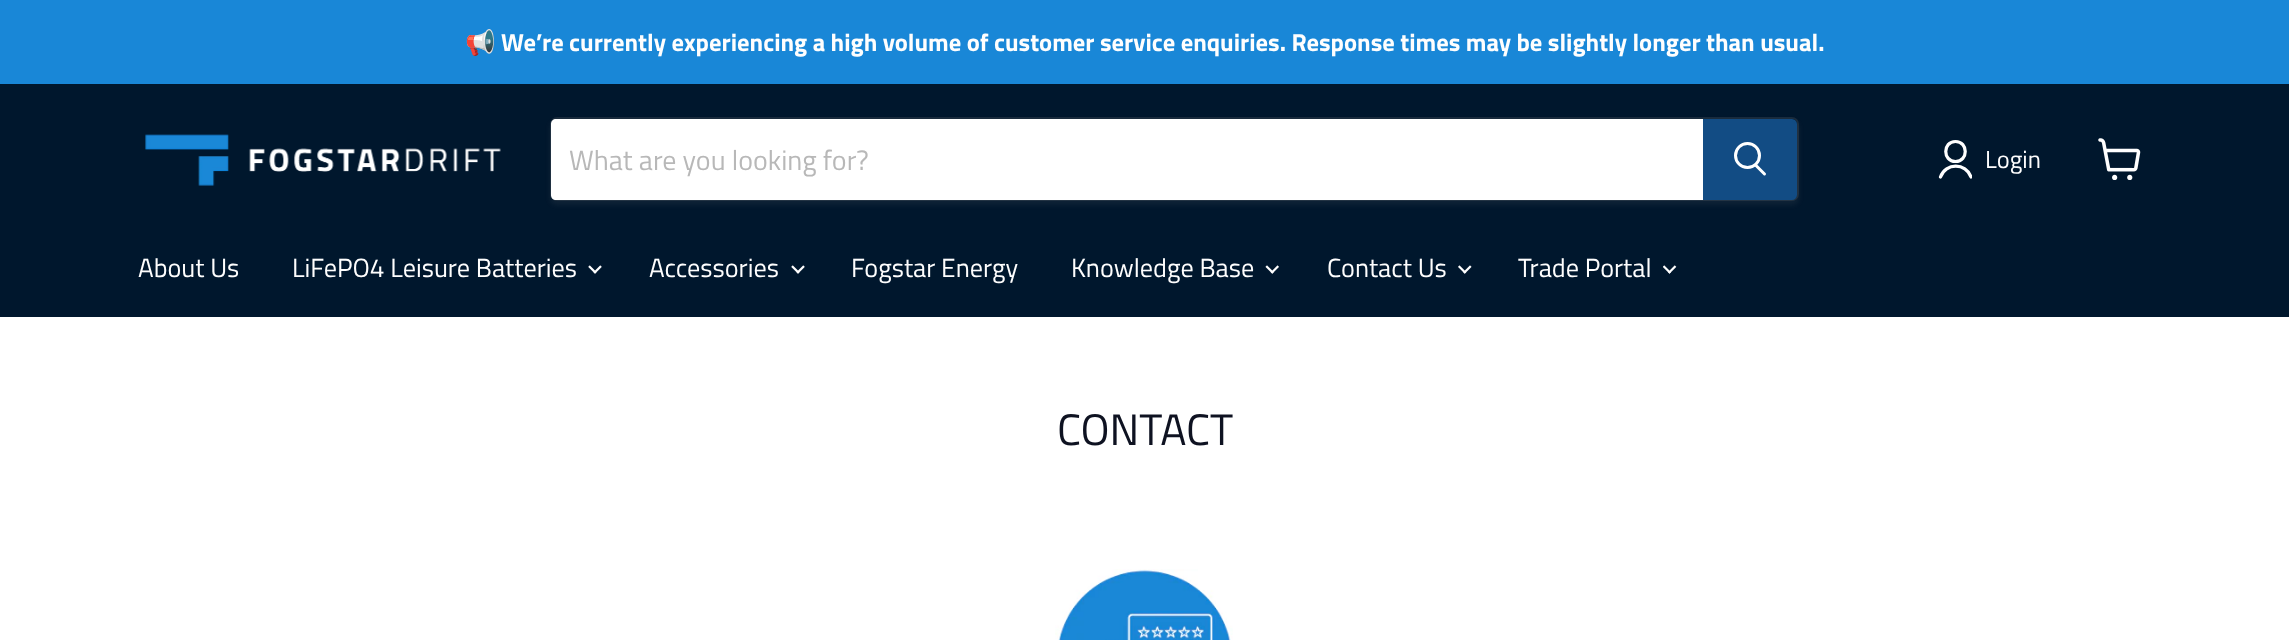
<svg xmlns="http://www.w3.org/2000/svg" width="2289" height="640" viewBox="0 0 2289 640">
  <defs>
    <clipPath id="clip1"><path d="M1937 138h35v42H1937z"/></clipPath>
  </defs>
  <rect width="100%" height="100%" fill="#fff"/>
  <path d="M0 0h2289v84H0z" fill="#1987d7"/>
  <path d="M0 84h2289v233H0z" fill="#00172d"/>
  <image x="145" y="134" width="356" height="52" href="img/1.png"/>
  <rect x="550" y="121" width="1249" height="84" rx="7" fill="#7f7f7f1c" filter="blur(2.5px)"/>
  <rect x="551" y="118" width="1247" height="82" rx="6" fill="none" stroke="#7f7f7f33" stroke-width="2"/>
  <path d="M556 119H1703V200H556C553 200 551 198 551 195V124C551 121 553 119 556 119Z" fill="#fff"/>
  <path d="M1704 120H1792C1794 120 1796 122 1796 124V195C1796 197 1794 199 1792 199H1704Z" fill="#124c84" stroke="#124c84" stroke-width="2"/>
  <path d="M1764.5 174L1756 165.5" fill="none" stroke="#fff" stroke-width="3" stroke-linecap="round"/>
  <circle cx="1747.5" cy="155.5" r="12" fill="none" stroke="#fff" stroke-width="3"/>
  <path d="M1955.5 161.5C1968.5 161.5 1968.5 141.5 1955.5 141.5C1942.5 141.5 1942.5 161.5 1955.5 161.5Z" fill="none" stroke="#fff" stroke-width="3.2" stroke-linecap="round" stroke-linejoin="round"/>
  <g clip-path="url(#clip1)">
    <path d="M1971 177C1966 162.5 1945.5 162.5 1940.5 177" fill="none" stroke="#fff" stroke-width="3.2" stroke-linecap="round" stroke-linejoin="round"/>
  </g>
  <image x="2098" y="138" width="43" height="42" href="img/2.png"/>
  <image x="588" y="265" width="14" height="9" href="img/3.png"/>
  <image x="791" y="265" width="14" height="9" href="img/3.png"/>
  <image x="1265" y="265" width="14" height="9" href="img/4.png"/>
  <image x="1458" y="265" width="14" height="9" href="img/5.png"/>
  <image x="1663" y="265" width="14" height="9" href="img/6.png"/>
  <image x="1055" y="569" width="178" height="71" href="img/7.png"/>
  <text x="465" y="51" font-family="Noto Color Emoji" font-size="24.6" font-weight="bold" fill="#fefefe">📢</text>
  <text x="501" y="51" font-family="Titillium Web" font-size="24.6" font-weight="bold" fill="#fefefe">We’re currently experiencing a high volume of customer service enquiries. Response times may be slightly longer than usual.</text>
  <text x="569" y="170" font-family="Titillium Web" font-size="28" fill="#b8b8b8">What are you looking for?</text>
  <text x="1985" y="168" font-family="Titillium Web" font-size="24.6" fill="#fefefe">Login</text>
  <g font-family="Titillium Web" font-size="26.25" fill="#fefefe">
    <text x="138" y="277">About Us</text>
    <text x="292" y="277">LiFePO4 Leisure Batteries</text>
    <text x="649" y="277">Accessories</text>
    <text x="851" y="277">Fogstar Energy</text>
    <text x="1071" y="277">Knowledge Base</text>
    <text x="1327" y="277">Contact Us</text>
    <text x="1518" y="277">Trade Portal</text>
  </g>
  <text x="1057" y="445" font-family="Titillium Web" font-size="44" fill="#0e1221">CONTACT</text>
</svg>
